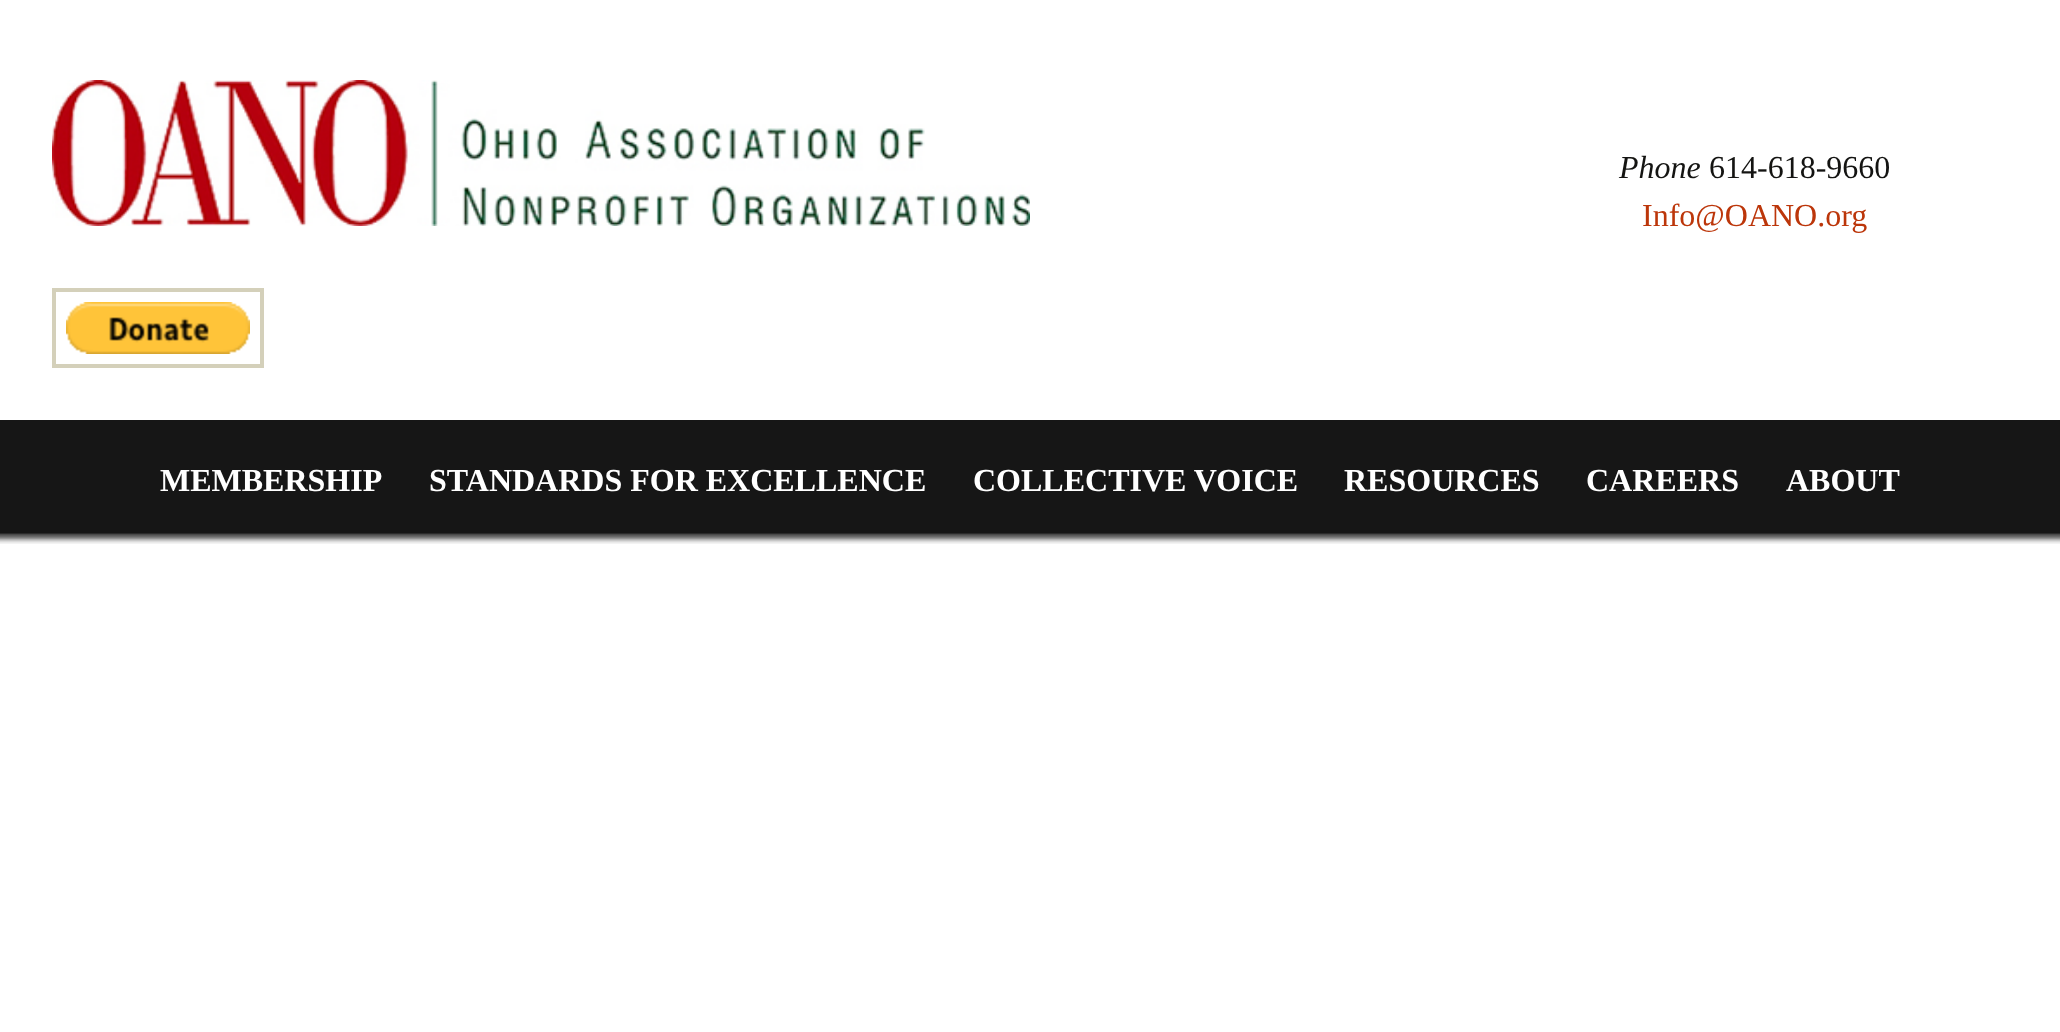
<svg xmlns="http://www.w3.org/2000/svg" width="2060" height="1032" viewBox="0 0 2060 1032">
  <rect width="100%" height="100%" fill="#fff"/>
  <image x="52" y="80" width="978" height="146" href="img/1.png"/>
  <path d="M54 290h208v76H54z" fill="none" stroke="#d4d0ba" stroke-width="4"/>
  <image x="66" y="302" width="184" height="52" href="img/2.png"/>
  <image x="0" y="420" width="2060" height="124" href="img/3.png"/>
  <text x="1619" y="178" font-family="Liberation Serif" font-size="32" font-style="italic" fill="#141412">Phone</text>
  <text x="1709" y="178" font-family="Liberation Serif" font-size="32" fill="#141412">614-618-9660</text>
  <text x="1642" y="226" font-family="Liberation Serif" font-size="32" fill="#bc360a">Info@OANO.org</text>
  <g font-family="Liberation Serif" font-size="32" font-weight="bold" fill="#fff">
    <text x="160" y="491">MEMBERSHIP</text>
    <text x="429" y="491">STANDARDS FOR EXCELLENCE</text>
    <text x="973" y="491">COLLECTIVE VOICE</text>
    <text x="1344" y="491">RESOURCES</text>
    <text x="1586" y="491">CAREERS</text>
    <text x="1786" y="491">ABOUT</text>
  </g>
</svg>
